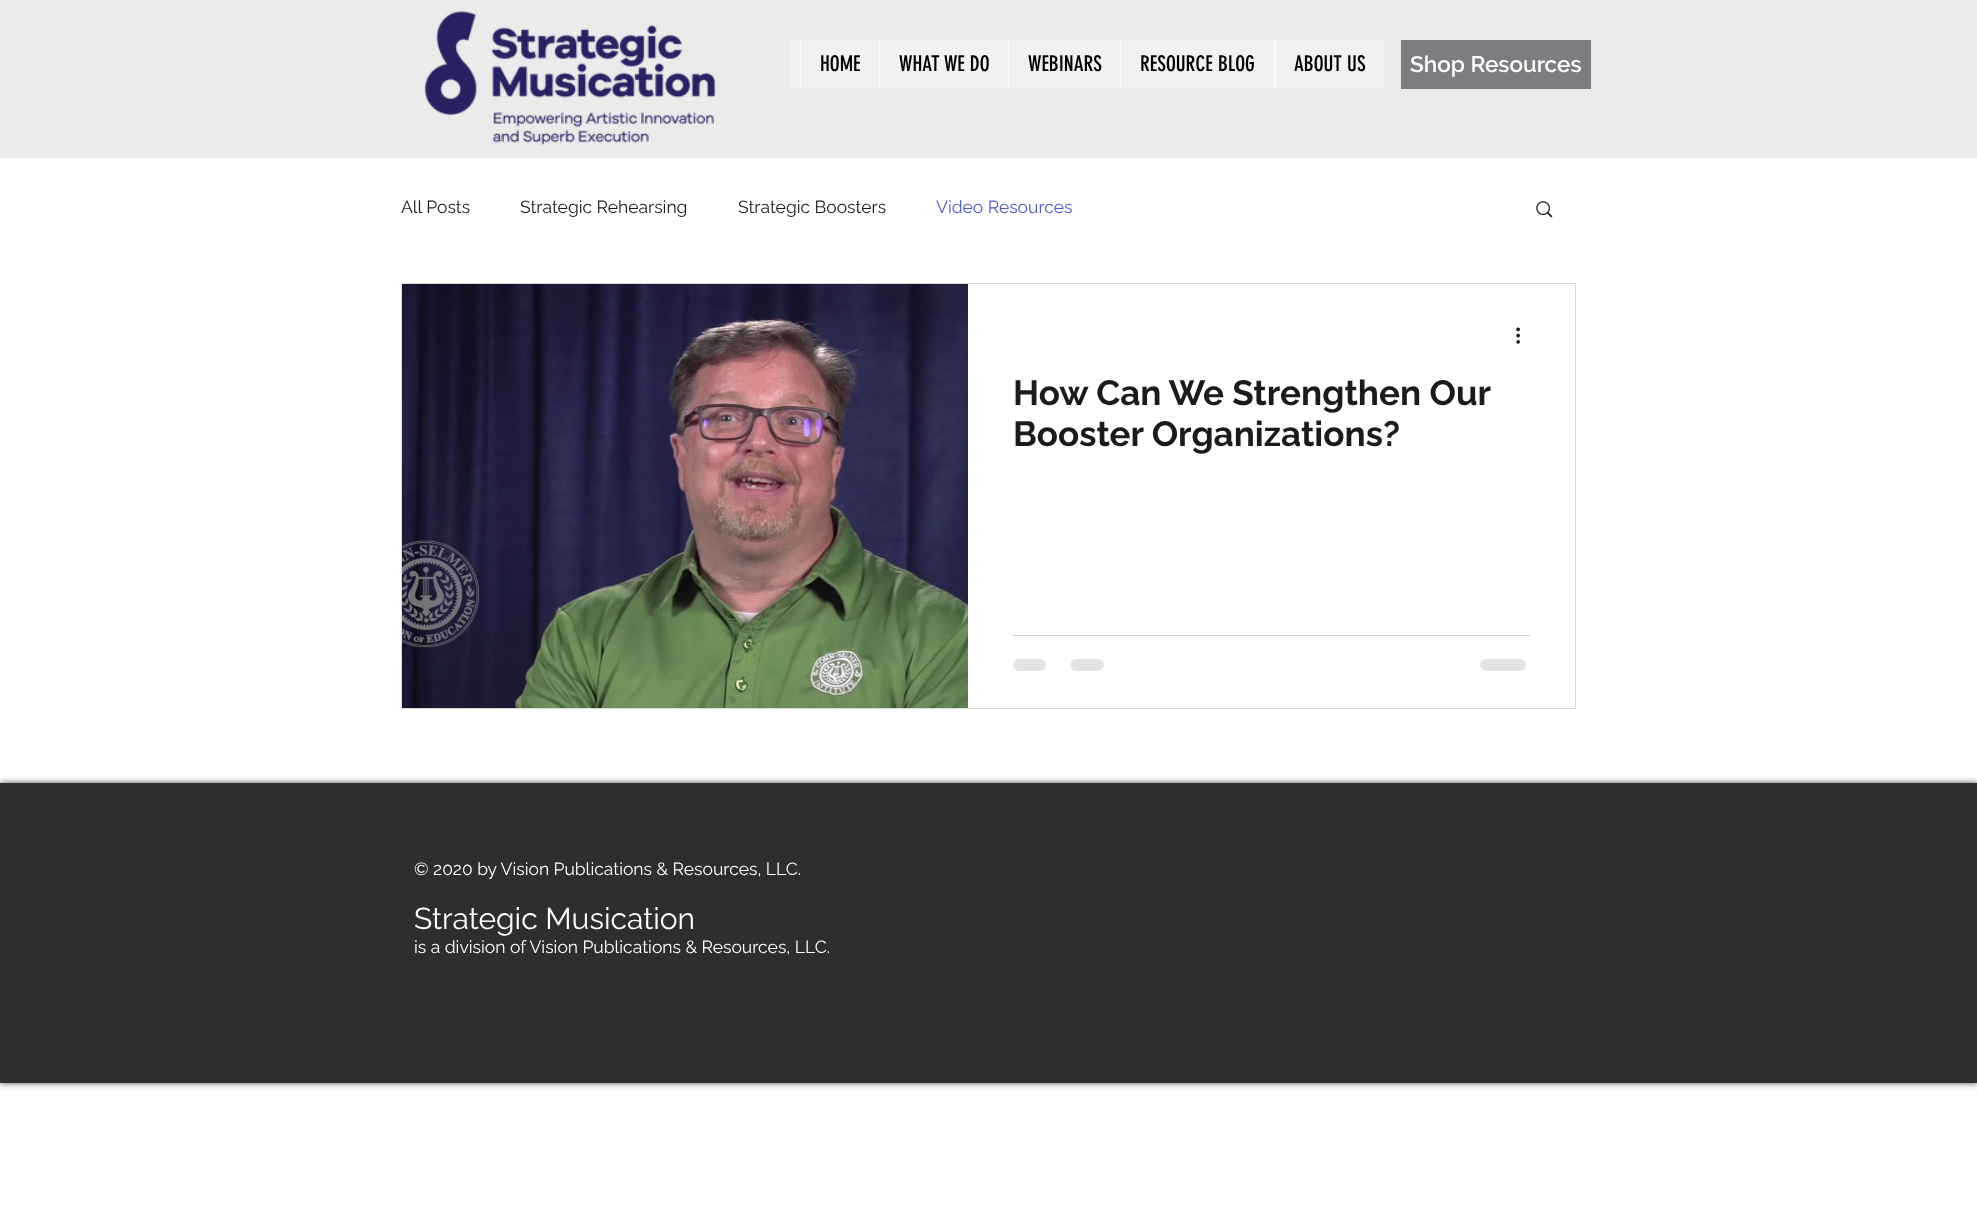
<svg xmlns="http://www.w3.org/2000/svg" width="1977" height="1223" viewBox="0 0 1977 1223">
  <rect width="100%" height="100%" fill="#fff"/>
  <path d="M0 0h1977v158H0z" fill="#ebebeb"/>
  <image x="424" y="11" width="292" height="134" href="img/1.png"/>
  <path d="M789 40h595v48H789z" fill="#f1f1f1"/>
  <path d="M800 40h1v48H800z" fill="#fff"/>
  <path d="M879 40h1v48H879z" fill="#fff"/>
  <path d="M1008 40h1v48H1008z" fill="#fff"/>
  <path d="M1120 40h1v48H1120z" fill="#fff"/>
  <path d="M1274 40h1v48H1274z" fill="#fff"/>
  <path d="M1401 40h190v49H1401z" fill="#7c7c83"/>
  <image x="1536" y="201" width="17" height="17" href="img/2.png"/>
  <path d="M401.5 283.5h1174v425H401.5z" fill="none" stroke="#dadada"/>
  <image x="402" y="284" width="566" height="424" href="img/3.png"/>
  <image x="1516" y="327" width="4" height="17" href="img/4.png"/>
  <path d="M1013 635h517v1H1013z" fill="#d1d1d2"/>
  <rect x="1013" y="659" width="33" height="12" rx="6" fill="#e4e4e4"/>
  <rect x="1070" y="659" width="34" height="12" rx="6" fill="#e4e4e4"/>
  <rect x="1480" y="659" width="46" height="12" rx="6" fill="#e4e4e4"/>
  <path d="M0 783h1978v300H0z" fill="#000000b3" filter="blur(3px)"/>
  <path d="M0 783h1977v300H0z" fill="#2f2e2e"/>
  <g font-family="'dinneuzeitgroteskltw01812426'" font-size="21.25" fill="#000">
    <text x="820" y="71">HOME</text>
    <text x="899" y="71">WHAT WE DO</text>
    <text x="1028" y="71">WEBINARS</text>
    <text x="1140" y="71">RESOURCE BLOG</text>
    <text x="1294" y="71">ABOUT US</text>
  </g>
  <text x="1410" y="72" font-family="Raleway" font-size="22.5" font-weight="600" fill="#fff">Shop Resources</text>
  <g font-family="Raleway" font-size="17.5" fill="#1b1b1e">
    <text x="401" y="213">All Posts</text>
    <text x="520" y="213">Strategic Rehearsing</text>
    <text x="738" y="213">Strategic Boosters</text>
  </g>
  <text x="936" y="213" font-family="Raleway" font-size="17.5" fill="#4e5ac3">Video Resources</text>
  <g font-family="Raleway" font-size="35" font-weight="bold" fill="#1b1b1e">
    <text x="1013" y="405">How Can We Strengthen Our</text>
    <text x="1013" y="446">Booster Organizations?</text>
  </g>
  <text x="414" y="875" font-family="Raleway" font-size="17.5" fill="#fff">© 2020 by Vision Publications &amp; Resources, LLC.</text>
  <text x="414" y="929" font-family="Raleway" font-size="30" fill="#fff">Strategic Musication</text>
  <text x="414" y="953" font-family="Raleway" font-size="17.5" fill="#fff">is a division of Vision Publications &amp; Resources, LLC.</text>
</svg>
